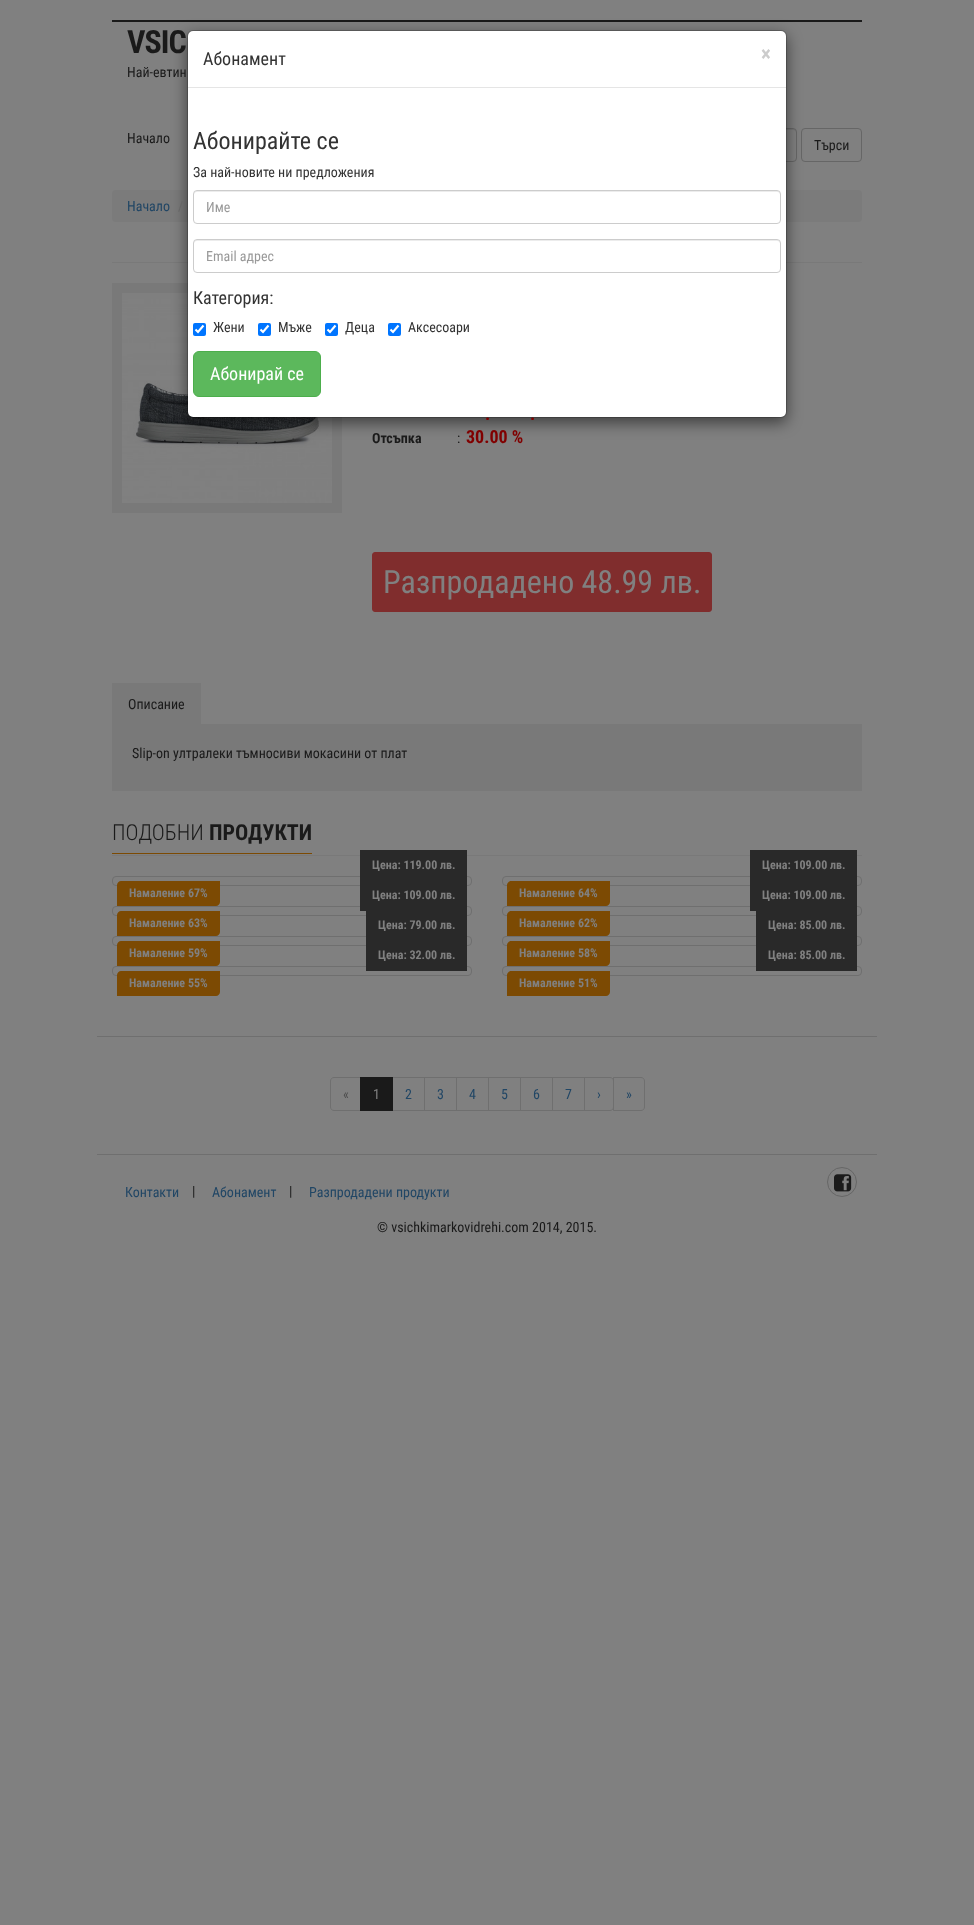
<svg xmlns="http://www.w3.org/2000/svg" width="974" height="1925" viewBox="0 0 974 1925">
  <rect width="100%" height="100%" fill="#808080"/>
  <path d="M112 20h750v2H112z" fill="#1a1a1a"/>
  <path d="M599 130H793C795 130 796 131 796 133C796 131 795 129 793 129H599C597 129 596 131 596 133C596 131 597 130 599 130Z" fill="#767676"/>
  <rect x="595.5" y="128.5" width="201" height="33" rx="3.5" fill="none" stroke="#666"/>
  <rect x="801.5" y="128.5" width="60" height="33" rx="3.5" fill="none" stroke="#666"/>
  <rect x="112" y="190" width="750" height="32" rx="4" fill="#7b7b7b"/>
  <path d="M112 262h750v1H112z" fill="#797979"/>
  <path d="M112 283h230v230H112z" fill="#797979"/>
  <image x="122" y="293" width="210" height="210" href="img/1.png"/>
  <rect x="187" y="35" width="600" height="388" rx="6" fill="#00000080" filter="blur(7.5px)"/>
  <rect x="188" y="31" width="598" height="386" rx="5" fill="#fff"/>
  <rect x="372.5" y="552.5" width="339" height="59" rx="2.5" fill="#802d2d" stroke="#802d2d"/>
  <path d="M201 724h661v1H201z" fill="#797979"/>
  <path d="M112 683h89v42H112z" fill="#797979"/>
  <path d="M112 725h750v66H112z" fill="#797979"/>
  <path d="M112 855h750v1H112z" fill="#797979"/>
  <path d="M112 853h200v1H112z" fill="#7c4a03"/>
  <rect x="112.5" y="876.5" width="359" height="9" rx="3.5" fill="none" stroke="#6f6f6f"/>
  <path d="M360 850h107v30H360z" fill="#292929"/>
  <path d="M121 881H220V902C220 904 218 906 216 906H117V885C117 883 119 881 121 881Z" fill="#7c4a03"/>
  <rect x="502.5" y="876.5" width="359" height="9" rx="3.5" fill="none" stroke="#6f6f6f"/>
  <path d="M750 850h107v30H750z" fill="#292929"/>
  <path d="M511 881H610V902C610 904 608 906 606 906H507V885C507 883 509 881 511 881Z" fill="#7c4a03"/>
  <rect x="112.5" y="906.5" width="359" height="9" rx="3.5" fill="none" stroke="#6f6f6f"/>
  <path d="M360 880h107v31H360z" fill="#292929"/>
  <path d="M121 911H220V932C220 934 218 936 216 936H117V915C117 913 119 911 121 911Z" fill="#7c4a03"/>
  <rect x="502.5" y="906.5" width="359" height="9" rx="3.5" fill="none" stroke="#6f6f6f"/>
  <path d="M750 880h107v31H750z" fill="#292929"/>
  <path d="M511 911H610V932C610 934 608 936 606 936H507V915C507 913 509 911 511 911Z" fill="#7c4a03"/>
  <rect x="112.5" y="936.5" width="359" height="9" rx="3.5" fill="none" stroke="#6f6f6f"/>
  <path d="M366 911h101v29H366z" fill="#292929"/>
  <path d="M121 941H220V962C220 964 218 966 216 966H117V945C117 943 119 941 121 941Z" fill="#7c4a03"/>
  <rect x="502.5" y="936.5" width="359" height="9" rx="3.5" fill="none" stroke="#6f6f6f"/>
  <path d="M756 911h101v29H756z" fill="#292929"/>
  <path d="M511 941H610V962C610 964 608 966 606 966H507V945C507 943 509 941 511 941Z" fill="#7c4a03"/>
  <rect x="112.5" y="966.5" width="359" height="9" rx="3.5" fill="none" stroke="#6f6f6f"/>
  <path d="M366 940h101v31H366z" fill="#292929"/>
  <path d="M121 971H220V992C220 994 218 996 216 996H117V975C117 973 119 971 121 971Z" fill="#7c4a03"/>
  <rect x="502.5" y="966.5" width="359" height="9" rx="3.5" fill="none" stroke="#6f6f6f"/>
  <path d="M756 940h101v31H756z" fill="#292929"/>
  <path d="M511 971H610V992C610 994 608 996 606 996H507V975C507 973 509 971 511 971Z" fill="#7c4a03"/>
  <path d="M97 1036h780v1H97z" fill="#6f6f6f"/>
  <path d="M97 1154h780v1H97z" fill="#6f6f6f"/>
  <path d="M334 1077.5H360.5V1110.5H334C332 1110.5 330.5 1109 330.5 1107V1081C330.5 1079 332 1077.5 334 1077.5Z" fill="none" stroke="#6f6f6f"/>
  <path d="M392.5 1077.5h32v33H392.5z" fill="none" stroke="#6f6f6f"/>
  <path d="M360 1077h33v34H360z" fill="#1a1a1a"/>
  <path d="M424.5 1077.5h32v33H424.5z" fill="none" stroke="#6f6f6f"/>
  <path d="M456.5 1077.5h32v33H456.5z" fill="none" stroke="#6f6f6f"/>
  <path d="M488.5 1077.5h32v33H488.5z" fill="none" stroke="#6f6f6f"/>
  <path d="M520.5 1077.5h32v33H520.5z" fill="none" stroke="#6f6f6f"/>
  <path d="M552.5 1077.5h32v33H552.5z" fill="none" stroke="#6f6f6f"/>
  <path d="M584.5 1077.5H610C612 1077.5 613.5 1079 613.5 1081V1107C613.5 1109 612 1110.5 610 1110.5H584.5Z" fill="#808080" stroke="#6f6f6f"/>
  <path d="M613.5 1077.5H641C643 1077.5 644.5 1079 644.5 1081V1107C644.5 1109 643 1110.5 641 1110.5H613.5Z" fill="#808080" stroke="#6f6f6f"/>
  <circle cx="842" cy="1182" r="14.5" fill="none" stroke="#666"/>
  <image x="834" y="1174" width="18" height="18" href="img/2.png"/>
  <text x="127" y="53" font-family="Roboto Condensed" font-size="32" font-weight="bold" letter-spacing="-1" fill="#1a1a1a">VSIC</text>
  <g font-family="Roboto Condensed" font-size="14" fill="#1a1a1a">
    <text x="127" y="77">Най-евтин</text>
    <text x="127" y="143">Начало</text>
    <text x="814" y="150">Търси</text>
  </g>
  <text x="127" y="211" font-family="Roboto Condensed" font-size="14" fill="#214665">Начало</text>
  <text x="178" y="211" font-family="Roboto Condensed" font-size="14" fill="#666">/</text>
  <g font-family="Roboto Condensed" font-size="18" font-weight="bold" fill="#800000">
    <text x="485" y="420">.</text>
    <text x="530" y="420">.</text>
  </g>
  <rect x="187.5" y="30.5" width="599" height="387" rx="5.5" fill="none" stroke="#00000033"/>
  <rect x="193.5" y="351.5" width="127" height="45" rx="5.5" fill="#5cb85c" stroke="#4cae4c"/>
  <text x="210" y="380" font-family="Roboto Condensed" font-size="18" fill="#fff">Абонирай се</text>
  <text x="408" y="332" font-family="Roboto Condensed" font-size="14" fill="#333">Аксесоари</text>
  <rect x="388" y="323" width="13" height="13" rx="2" fill="#0075ff"/>
  <path d="M390.5 329.5L393 332L398.5 325.5" fill="none" stroke="#fff" stroke-width="2.1"/>
  <text x="345" y="332" font-family="Roboto Condensed" font-size="14" fill="#333">Деца</text>
  <rect x="325" y="323" width="13" height="13" rx="2" fill="#0075ff"/>
  <path d="M327.5 329.5L330 332L335.5 325.5" fill="none" stroke="#fff" stroke-width="2.1"/>
  <text x="278" y="332" font-family="Roboto Condensed" font-size="14" fill="#333">Мъже</text>
  <rect x="258" y="323" width="13" height="13" rx="2" fill="#0075ff"/>
  <path d="M260.5 329.5L263 332L268.5 325.5" fill="none" stroke="#fff" stroke-width="2.1"/>
  <text x="213" y="332" font-family="Roboto Condensed" font-size="14" fill="#333">Жени</text>
  <rect x="193" y="323" width="13" height="13" rx="2" fill="#0075ff"/>
  <path d="M195.5 329.5L198 332L203.5 325.5" fill="none" stroke="#fff" stroke-width="2.1"/>
  <text x="193" y="304" font-family="Roboto Condensed" font-size="18" fill="#333">Категория:</text>
  <path d="M197 241H777C779 241 780 242 780 244V243C780 241 779 240 777 240H197C195 240 194 241 194 243V244C194 242 195 241 197 241Z" fill="#ececec"/>
  <rect x="193.5" y="239.5" width="587" height="33" rx="3.5" fill="none" stroke="#ccc"/>
  <text x="206" y="261" font-family="Roboto Condensed" font-size="14" fill="#999">Email адрес</text>
  <path d="M197 192H777C779 192 780 193 780 195V194C780 192 779 191 777 191H197C195 191 194 192 194 194V195C194 193 195 192 197 192Z" fill="#ececec"/>
  <rect x="193.5" y="190.5" width="587" height="33" rx="3.5" fill="none" stroke="#ccc"/>
  <text x="206" y="212" font-family="Roboto Condensed" font-size="14" fill="#999">Име</text>
  <text x="193" y="177" font-family="Roboto Condensed" font-size="14" fill="#333">За най-новите ни предложения</text>
  <text x="193" y="149" font-family="Roboto Condensed" font-size="24" fill="#333">Абонирайте се</text>
  <text x="761" y="61" font-family="Roboto Condensed" font-size="21" font-weight="bold" fill="#ccc">×</text>
  <text x="203" y="65" font-family="Roboto Condensed" font-size="18" fill="#333">Абонамент</text>
  <path d="M188 87h598v1H188z" fill="#e5e5e5"/>
  <text x="372" y="443" font-family="Roboto Condensed" font-size="14" font-weight="bold" fill="#1a1a1a">Отсъпка</text>
  <text x="457" y="443" font-family="Roboto Condensed" font-size="14" fill="#1a1a1a">:</text>
  <text x="466" y="443" font-family="Roboto Condensed" font-size="18" font-weight="bold" fill="#800000">30.00 %</text>
  <text x="383" y="593" font-family="Roboto Condensed" font-size="32" fill="#808080">Разпродадено 48.99 лв.</text>
  <g font-family="Roboto Condensed" font-size="14" fill="#1a1a1a">
    <text x="128" y="709">Описание</text>
    <text x="132" y="758">Slip-on ултралеки тъмносиви мокасини от плат</text>
  </g>
  <text x="112" y="840" font-family="Roboto Condensed" font-size="22" font-weight="300" fill="#1a1a1a">ПОДОБНИ</text>
  <text x="209" y="840" font-family="Roboto Condensed" font-size="22" font-weight="bold" fill="#1a1a1a">ПРОДУКТИ</text>
  <g font-family="Roboto Condensed" font-size="12" font-weight="bold" fill="#808080">
    <text x="372" y="869">Ценa: 119.00 лв.</text>
    <text x="129" y="897">Намаление 67%</text>
    <text x="762" y="869">Ценa: 109.00 лв.</text>
    <text x="519" y="897">Намаление 64%</text>
    <text x="372" y="899">Ценa: 109.00 лв.</text>
    <text x="129" y="927">Намаление 63%</text>
    <text x="762" y="899">Ценa: 109.00 лв.</text>
    <text x="519" y="927">Намаление 62%</text>
    <text x="378" y="929">Ценa: 79.00 лв.</text>
    <text x="129" y="957">Намаление 59%</text>
    <text x="768" y="929">Ценa: 85.00 лв.</text>
    <text x="519" y="957">Намаление 58%</text>
    <text x="378" y="959">Ценa: 32.00 лв.</text>
    <text x="129" y="987">Намаление 55%</text>
    <text x="768" y="959">Ценa: 85.00 лв.</text>
    <text x="519" y="987">Намаление 51%</text>
  </g>
  <text x="343" y="1099" font-family="Roboto Condensed" font-size="14" fill="#4d4d4d">«</text>
  <text x="373" y="1099" font-family="Roboto Condensed" font-size="14" fill="#808080">1</text>
  <g font-family="Roboto Condensed" font-size="14" fill="#214665">
    <text x="405" y="1099">2</text>
    <text x="437" y="1099">3</text>
    <text x="469" y="1099">4</text>
    <text x="501" y="1099">5</text>
    <text x="533" y="1099">6</text>
    <text x="565" y="1099">7</text>
    <text x="597" y="1099">›</text>
    <text x="626" y="1099">»</text>
    <text x="125" y="1197">Контакти</text>
  </g>
  <text x="192" y="1196" font-family="Roboto Condensed" font-size="14" fill="#1a1a1a">|</text>
  <text x="212" y="1197" font-family="Roboto Condensed" font-size="14" fill="#214665">Абонамент</text>
  <text x="289" y="1196" font-family="Roboto Condensed" font-size="14" fill="#1a1a1a">|</text>
  <text x="309" y="1197" font-family="Roboto Condensed" font-size="14" fill="#214665">Разпродадени продукти</text>
  <text x="377" y="1232" font-family="Roboto Condensed" font-size="14" fill="#1a1a1a">© vsichkimarkovidrehi.com 2014, 2015.</text>
</svg>
